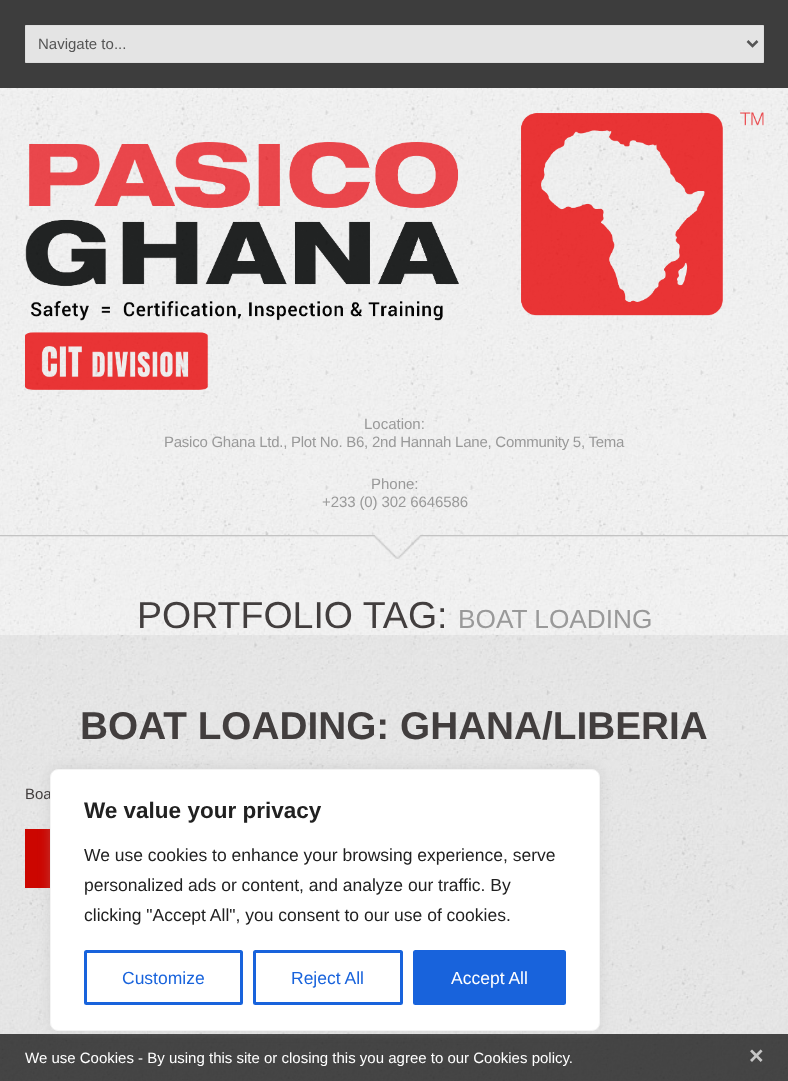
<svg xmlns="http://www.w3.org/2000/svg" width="788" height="1081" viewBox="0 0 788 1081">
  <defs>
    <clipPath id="clip1"><path d="M25 390h739v120H25z"/></clipPath>
  </defs>
  <rect width="100%" height="100%" fill="#fff"/>
  <image x="0" y="635" width="788" height="446" href="img/1.png"/>
  <image x="0" y="88" width="788" height="447" href="img/2.png"/>
  <path d="M0 0h788v88H0z" fill="#3d3d3d"/>
  <path d="M25.5 25.5h738v37H25.5z" fill="#e4e4e4" stroke="#ddd"/>
  <path d="M747.5 41L752.5 46L757.5 41" fill="none" stroke="#555" stroke-width="2.5"/>
  <image x="25" y="112" width="739" height="278" href="img/3.png"/>
  <image x="0" y="535" width="788" height="100" href="img/4.png"/>
  <image x="0" y="535" width="788" height="24" href="img/5.png"/>
  <path d="M25 829h25v59H25z" fill="#cc0600"/>
  <path d="M0 1034h788v47H0z" fill="#000000b3"/>
  <rect x="50" y="768" width="550" height="262" rx="8" fill="#acabab4d" filter="blur(6px)"/>
  <text x="38" y="49" font-family="Liberation Sans" font-size="15" fill="#555">Navigate to...</text>
  <text x="364" y="429" font-family="Liberation Sans" font-size="15" fill="#999">Location:</text>
  <text x="164" y="447" font-family="Liberation Sans" font-size="15" letter-spacing="-0.25" fill="#999">Pasico Ghana Ltd., Plot No. B6, 2nd Hannah Lane, Community 5, Tema</text>
  <text x="371" y="489" font-family="Liberation Sans" font-size="15" fill="#999">Phone:</text>
  <g clip-path="url(#clip1)">
    <text x="322" y="507" font-family="Liberation Sans" font-size="15" letter-spacing="-0.1" fill="#999">+233 (0) 302 6646586</text>
  </g>
  <text x="137" y="628" font-family="Liberation Sans" font-size="37.5" fill="#423e3e">PORTFOLIO TAG:</text>
  <text x="458" y="628" font-family="Liberation Sans" font-size="26.25" fill="#999">BOAT LOADING</text>
  <text x="80" y="739" font-family="Liberation Sans" font-size="38.75" font-weight="bold" fill="#423e3e">BOAT LOADING: GHANA/LIBERIA</text>
  <text x="25" y="799" font-family="Liberation Sans" font-size="15" fill="#423e3e">Boa</text>
  <rect x="50.5" y="769.5" width="549" height="261" rx="7.5" fill="#fff" stroke="#f4f4f4"/>
  <text x="84" y="818" font-family="Liberation Sans" font-size="22.5" font-weight="bold" fill="#212121">We value your privacy</text>
  <g font-family="Liberation Sans" font-size="17.5" fill="#212121">
    <text x="84" y="861">We use cookies to enhance your browsing experience, serve</text>
    <text x="84" y="891">personalized ads or content, and analyze our traffic. By</text>
    <text x="84" y="921">clicking "Accept All", you consent to our use of cookies.</text>
  </g>
  <rect x="85.5" y="951.5" width="156" height="52" rx="1" fill="none" stroke="#1863dc" stroke-width="3"/>
  <text x="122" y="984" font-family="Liberation Sans" font-size="17.5" fill="#1863dc">Customize</text>
  <rect x="254.5" y="951.5" width="147" height="52" rx="1" fill="none" stroke="#1863dc" stroke-width="3"/>
  <text x="291" y="984" font-family="Liberation Sans" font-size="17.5" fill="#1863dc">Reject All</text>
  <rect x="414.5" y="951.5" width="150" height="52" rx="1" fill="#1863dc" stroke="#1863dc" stroke-width="3"/>
  <text x="451" y="984" font-family="Liberation Sans" font-size="17.5" fill="#fff">Accept All</text>
  <text x="25" y="1063" font-family="Liberation Sans" font-size="15" fill="#fff">We use Cookies - By using this site or closing this you agree to our Cookies policy.</text>
  <text x="749" y="1064" font-family="Liberation Sans" font-size="25" font-weight="bold" fill="#c7c7c7">×</text>
</svg>
